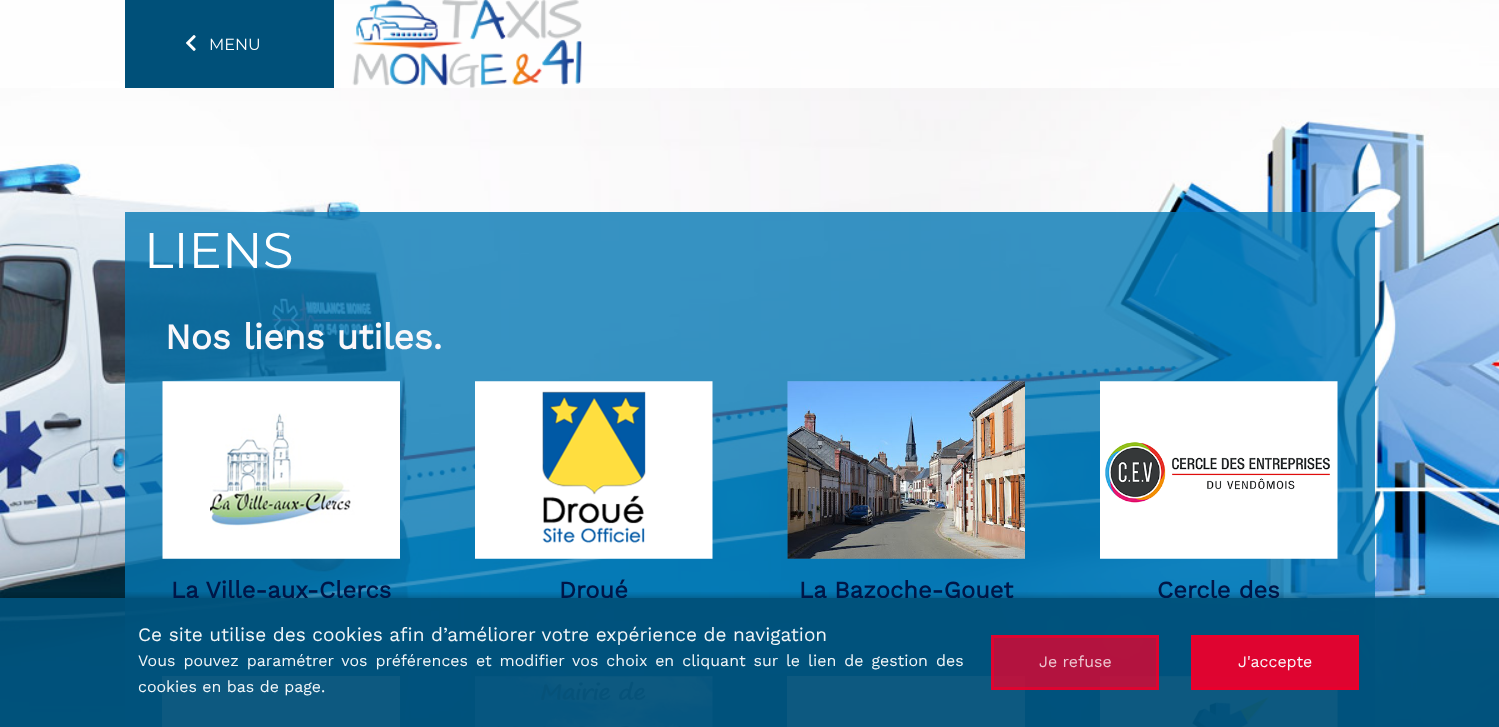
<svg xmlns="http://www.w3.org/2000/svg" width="1499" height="727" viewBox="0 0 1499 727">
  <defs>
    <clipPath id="clip1"><path d="M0 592h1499v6H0z"/></clipPath>
  </defs>
  <rect width="100%" height="100%" fill="#fff"/>
  <image x="0" y="0" width="1499" height="727" href="img/1.png"/>
  <path d="M0 0h1499v88H0z" fill="#ffffffcc"/>
  <path d="M125 0h209v88H125z" fill="#005079"/>
  <image x="186" y="35" width="10" height="16" href="img/2.png"/>
  <image x="352" y="0" width="230" height="88" href="img/3.png"/>
  <path d="M125 212h1250v515H125z" fill="#0578b4cc"/>
  <image x="162" y="381" width="238" height="178" href="img/4.png"/>
  <image x="475" y="381" width="238" height="178" href="img/5.png"/>
  <image x="787" y="381" width="238" height="178" href="img/6.png"/>
  <image x="1100" y="381" width="238" height="178" href="img/7.png"/>
  <path d="M162 676h238v51H162z" fill="#fff"/>
  <image x="475" y="676" width="238" height="51" href="img/8.png"/>
  <path d="M787 676h238v51H787z" fill="#fff"/>
  <image x="1100" y="676" width="238" height="51" href="img/9.png"/>
  <g clip-path="url(#clip1)">
    <path d="M0 598h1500v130H0z" fill="#00000061" filter="blur(4px)"/>
  </g>
  <text x="209" y="50" font-family="Montserrat" font-size="16" font-weight="100" fill="#fff">MENU</text>
  <text x="144" y="268" font-family="Montserrat" font-size="50" font-weight="100" fill="#fff">LIENS</text>
  <text x="165" y="349" font-family="Work Sans" font-size="35.5" font-weight="bold" fill="#f9f7fa">Nos liens utiles.</text>
  <g font-family="Work Sans" font-size="23.75" font-weight="bold" fill="#001647">
    <text x="171" y="598">La Ville-aux-Clercs</text>
    <text x="559" y="598">Droué</text>
    <text x="799" y="598">La Bazoche-Gouet</text>
    <text x="1157" y="598">Cercle des</text>
  </g>
  <path d="M0 598h1499v129H0z" fill="#005079f2"/>
  <text x="138" y="641" font-family="Work Sans" font-size="19.1" fill="#f2f6f8">Ce site utilise des cookies afin d’améliorer votre expérience de navigation</text>
  <g font-family="Work Sans" font-size="15.95" fill="#f2f6f8">
    <text x="138" y="666" word-spacing="2.6">Vous pouvez paramétrer vos préférences et modifier vos choix en cliquant sur le lien de gestion des</text>
    <text x="138" y="692">cookies en bas de page.</text>
  </g>
  <path d="M991 635h168v55H991z" fill="#eb002cc2"/>
  <path d="M992.5 636.5h165v52H992.5z" fill="none" stroke="#eb002cc2" stroke-width="3"/>
  <text x="1039" y="667" font-family="Work Sans" font-size="15.95" fill="#edc7d1">Je refuse</text>
  <path d="M1192.5 636.5h165v52H1192.5z" fill="#eb002cf2" stroke="#ea002c" stroke-width="3"/>
  <text x="1238" y="667" font-family="Work Sans" font-size="15.95" fill="#f9f7fa">J'accepte</text>
</svg>
